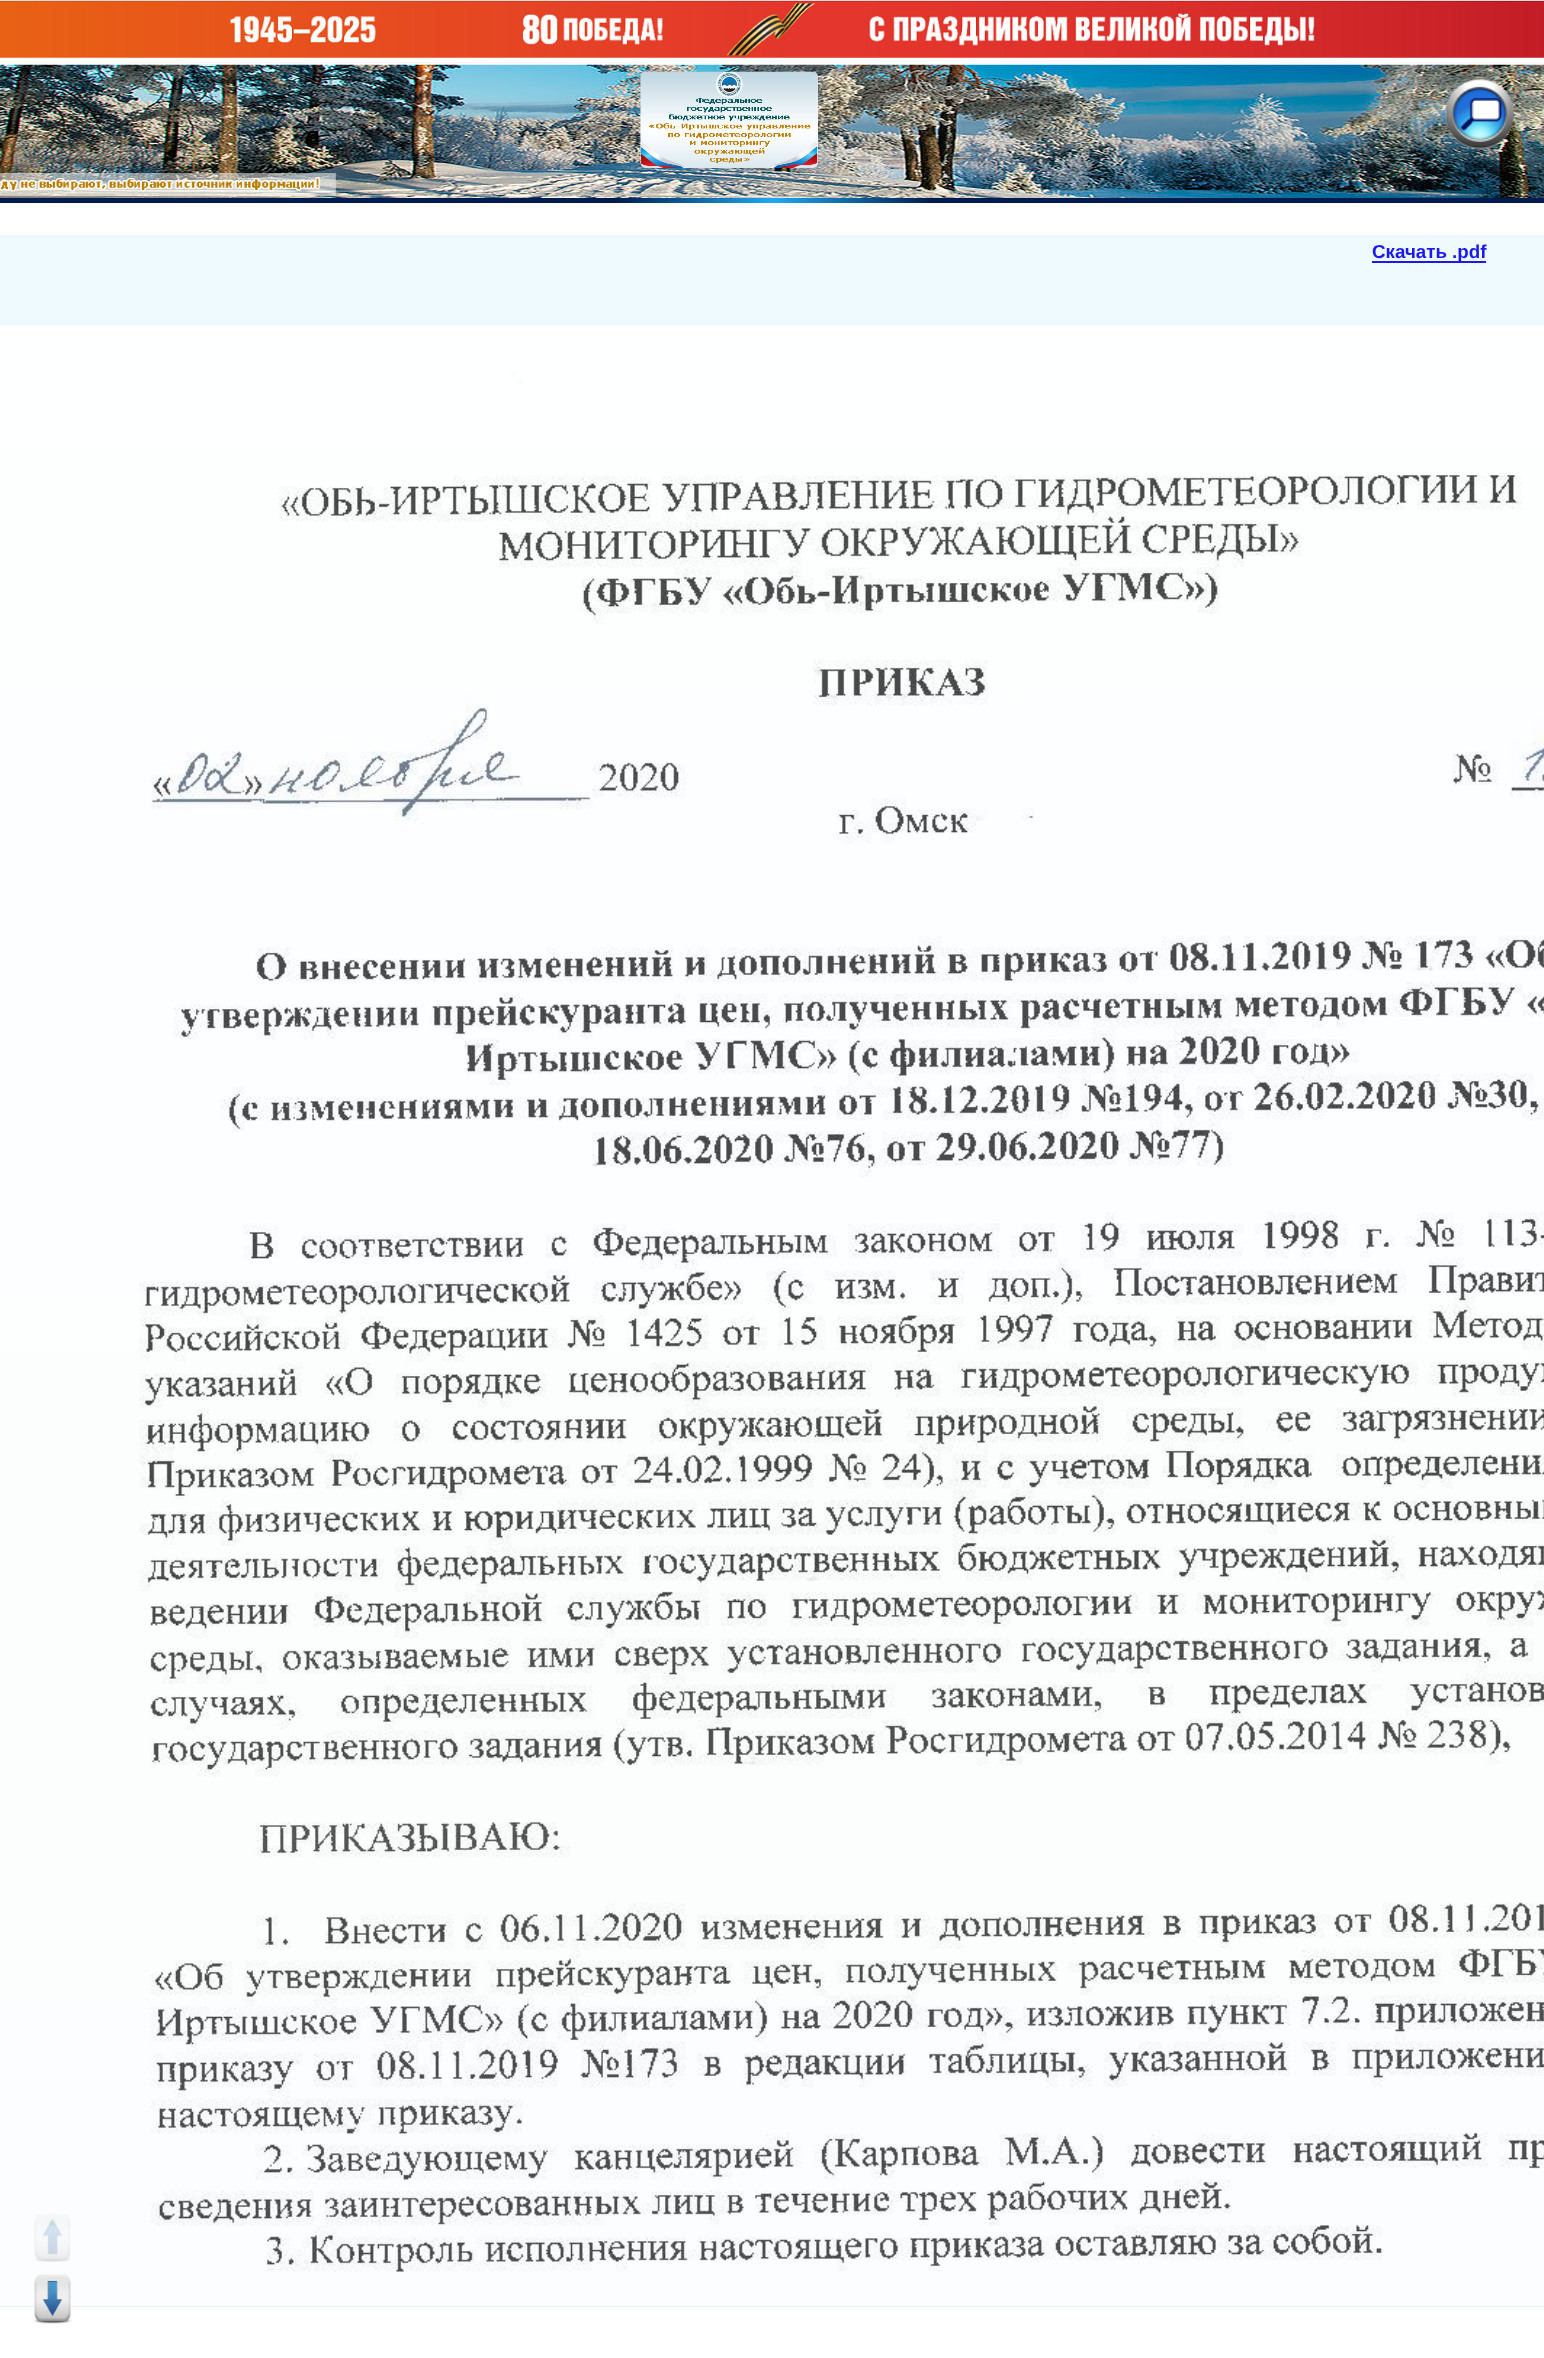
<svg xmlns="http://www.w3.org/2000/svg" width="1544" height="2358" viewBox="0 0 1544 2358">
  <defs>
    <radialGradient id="g1" gradientUnits="userSpaceOnUse" cx="773" cy="200" r="158"><stop offset="0" stop-color="#1fa9f4"/><stop offset="1" stop-color="#001c4e"/></radialGradient>
    <linearGradient id="g2" gradientUnits="userSpaceOnUse" x1="773" y1="235" x2="773" y2="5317"><stop offset="0" stop-color="#effafe"/><stop offset="1" stop-color="#b6d3da"/></linearGradient>
  </defs>
  <rect width="100%" height="100%" fill="#fff"/>
  <image x="0" y="0" width="1544" height="58" href="img/1.png"/>
  <image x="0" y="64" width="1544" height="134" href="img/2.png"/>
  <image x="640" y="71" width="178" height="97" href="img/3.png"/>
  <image x="1445" y="78" width="69" height="71" href="img/4.png"/>
  <image x="0" y="173" width="336" height="23" href="img/5.png"/>
  <path d="M0 198h1544v5H0z" fill="url(#g1)"/>
  <path d="M0 235h1544v2072H0z" fill="url(#g2)"/>
  <path d="M1372 261h114v2H1372z" fill="#1a1af0"/>
  <image x="0" y="325" width="1544" height="1982" href="img/6.png"/>
  <image x="34" y="2214" width="37" height="48" href="img/7.png"/>
  <image x="33" y="2274" width="39" height="50" href="img/8.png"/>
  <text x="1372" y="258" font-family="Liberation Sans" font-size="18.75" font-weight="bold" fill="#1a1af0">Скачать .pdf</text>
</svg>
